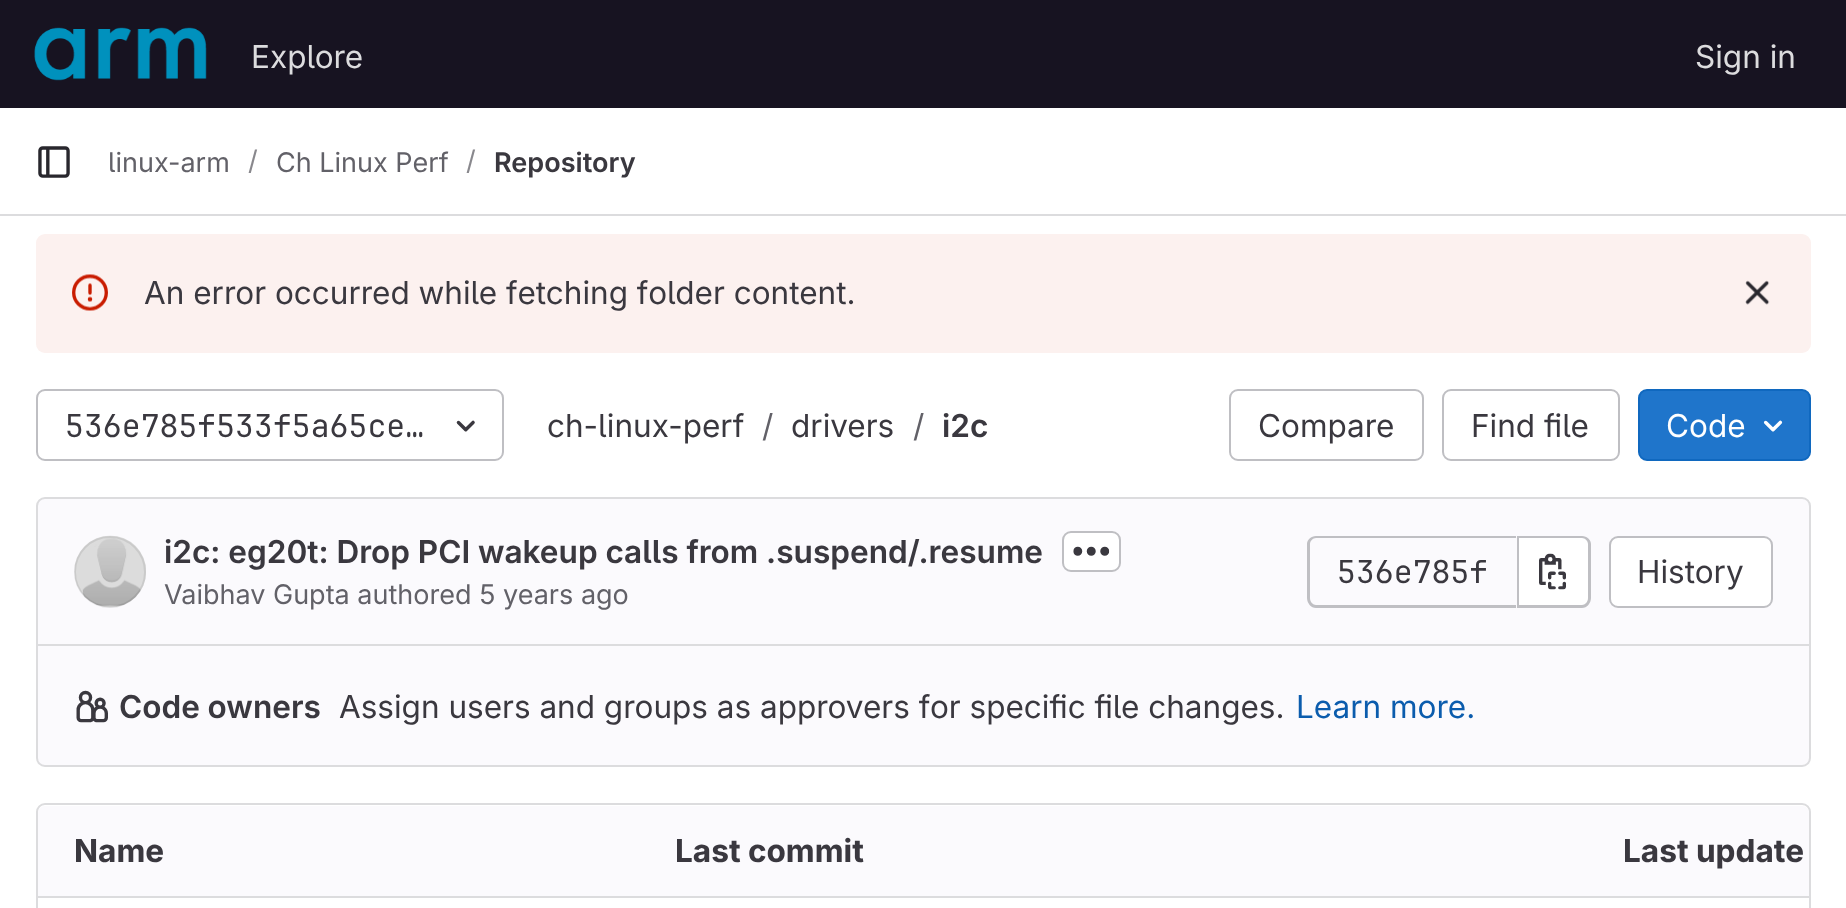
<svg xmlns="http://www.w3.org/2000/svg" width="1846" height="908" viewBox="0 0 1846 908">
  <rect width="100%" height="100%" fill="#fff"/>
  <path d="M0 0h1846v108H0z" fill="#171321"/>
  <image x="34" y="27" width="173" height="54" href="img/1.png"/>
  <path d="M0 214h1846v2H0z" fill="#dcdcde"/>
  <image x="38" y="146" width="32" height="32" href="img/2.png"/>
  <rect x="36" y="234" width="1775" height="119" rx="9" fill="#fcf1ef"/>
  <image x="72" y="274" width="36" height="37" href="img/3.png"/>
  <image x="1745" y="280" width="25" height="25" href="img/4.png"/>
  <rect x="37" y="390" width="466" height="70" rx="8" fill="none" stroke="#bfbfc3" stroke-width="2"/>
  <image x="456" y="420" width="19" height="12" href="img/5.png"/>
  <rect x="1230" y="390" width="193" height="70" rx="8" fill="none" stroke="#bfbfc3" stroke-width="2"/>
  <rect x="1443" y="390" width="176" height="70" rx="8" fill="none" stroke="#bfbfc3" stroke-width="2"/>
  <rect x="1639" y="390" width="171" height="70" rx="8" fill="#1f75cb" stroke="#1068bf" stroke-width="2"/>
  <image x="1763" y="420" width="20" height="12" href="img/6.png"/>
  <rect x="37" y="498" width="1773" height="268" rx="8" fill="#fbfafd" stroke="#dcdcde" stroke-width="2"/>
  <image x="74" y="535" width="72" height="73" href="img/7.png"/>
  <circle cx="110" cy="572" r="35" fill="none" stroke="#05050614" stroke-width="2"/>
  <rect x="1063" y="532" width="57" height="39" rx="8" fill="#fff" stroke="#bfbfc3" stroke-width="2"/>
  <image x="1073" y="546" width="37" height="10" href="img/8.png"/>
  <path d="M1316 536H1516V608H1316C1311 608 1307 603 1307 598V544C1307 540 1311 536 1316 536ZM1316 538H1516V605H1316C1313 605 1310 602 1310 598V544C1310 541 1313 538 1316 538Z" fill="#bfbfc3" fill-rule="evenodd"/>
  <path d="M1519 538H1582C1586 538 1589 541 1589 545V598C1589 602 1586 605 1582 605H1519Z" fill="#fff"/>
  <path d="M1519 536H1582C1587 536 1591 540 1591 544V598C1591 603 1587 608 1582 608H1519ZM1519 538H1582C1585 538 1588 541 1588 544V598C1588 602 1585 605 1582 605H1519Z" fill="#bfbfc3" fill-rule="evenodd"/>
  <path d="M1517 536h2v72H1517z" fill="#bfbfc3"/>
  <image x="1539" y="553" width="27" height="37" href="img/9.png"/>
  <rect x="1610" y="537" width="162" height="70" rx="8" fill="#fff" stroke="#bfbfc3" stroke-width="2"/>
  <path d="M38 644h1771v2H38z" fill="#dcdcde"/>
  <image x="76" y="690" width="32" height="33" href="img/10.png"/>
  <rect x="37" y="804" width="1773" height="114" rx="8" fill="none" stroke="#dcdcde" stroke-width="2"/>
  <path d="M45 806H639V898H38V813C38 809 41 806 45 806Z" fill="#fbfafd"/>
  <path d="M639 806h601v90H639z" fill="#fbfafd"/>
  <path d="M1240 806H1802C1806 806 1809 809 1809 813V898H1240Z" fill="#fbfafd"/>
  <path d="M38 896h1771v2H38z" fill="#dcdcde"/>
  <g font-family="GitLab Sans" font-size="31.5" fill="#dcdcde">
    <text x="251" y="68">Explore</text>
    <text x="1695" y="68">Sign in</text>
  </g>
  <text x="108" y="172" font-family="GitLab Sans" font-size="27" fill="#626168">linux-arm</text>
  <text x="248" y="170" font-family="GitLab Sans" font-size="27" fill="#89888d">/</text>
  <text x="276" y="172" font-family="GitLab Sans" font-size="27" fill="#626168">Ch Linux Perf</text>
  <text x="466" y="170" font-family="GitLab Sans" font-size="27" fill="#89888d">/</text>
  <text x="494" y="172" font-family="GitLab Sans" font-size="27" font-weight="600" fill="#3a383f">Repository</text>
  <text x="144" y="304" font-family="GitLab Sans" font-size="31.5" fill="#3a383f">An error occurred while fetching folder content.</text>
  <text x="65" y="437" font-family="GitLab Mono" font-size="31.5" fill="#3a383f">536e785f533f5a65ce…</text>
  <text x="547" y="437" font-family="GitLab Sans" font-size="31.5" fill="#3a383f">ch-linux-perf</text>
  <text x="762" y="437" font-family="GitLab Sans" font-size="31.5" fill="#626168">/</text>
  <text x="791" y="437" font-family="GitLab Sans" font-size="31.5" fill="#3a383f">drivers</text>
  <text x="913" y="437" font-family="GitLab Sans" font-size="31.5" fill="#626168">/</text>
  <text x="942" y="437" font-family="GitLab Sans" font-size="31.5" font-weight="600" fill="#3a383f">i2c</text>
  <g font-family="GitLab Sans" font-size="31.5" fill="#3a383f">
    <text x="1258" y="437">Compare</text>
    <text x="1471" y="437">Find file</text>
  </g>
  <text x="1666" y="437" font-family="GitLab Sans" font-size="31.5" fill="#fff">Code</text>
  <text x="164" y="563" font-family="GitLab Sans" font-size="31.5" font-weight="600" fill="#3a383f">i2c: eg20t: Drop PCI wakeup calls from .suspend/.resume</text>
  <text x="164" y="604" font-family="GitLab Sans" font-size="27" fill="#626168">Vaibhav Gupta authored 5 years ago</text>
  <text x="1337" y="583" font-family="GitLab Mono" font-size="31.5" fill="#3a383f">536e785f</text>
  <text x="1637" y="583" font-family="GitLab Sans" font-size="31.5" fill="#3a383f">History</text>
  <text x="119" y="718" font-family="GitLab Sans" font-size="31.5" font-weight="600" fill="#3a383f">Code owners</text>
  <text x="339" y="718" font-family="GitLab Sans" font-size="31.5" fill="#3a383f">Assign users and groups as approvers for specific file changes.</text>
  <text x="1296" y="718" font-family="GitLab Sans" font-size="31.5" fill="#0b5cad">Learn more.</text>
  <g font-family="GitLab Sans" font-size="31.5" font-weight="bold" fill="#3a383f">
    <text x="74" y="862">Name</text>
    <text x="675" y="862">Last commit</text>
    <text x="1623" y="862">Last update</text>
  </g>
</svg>
